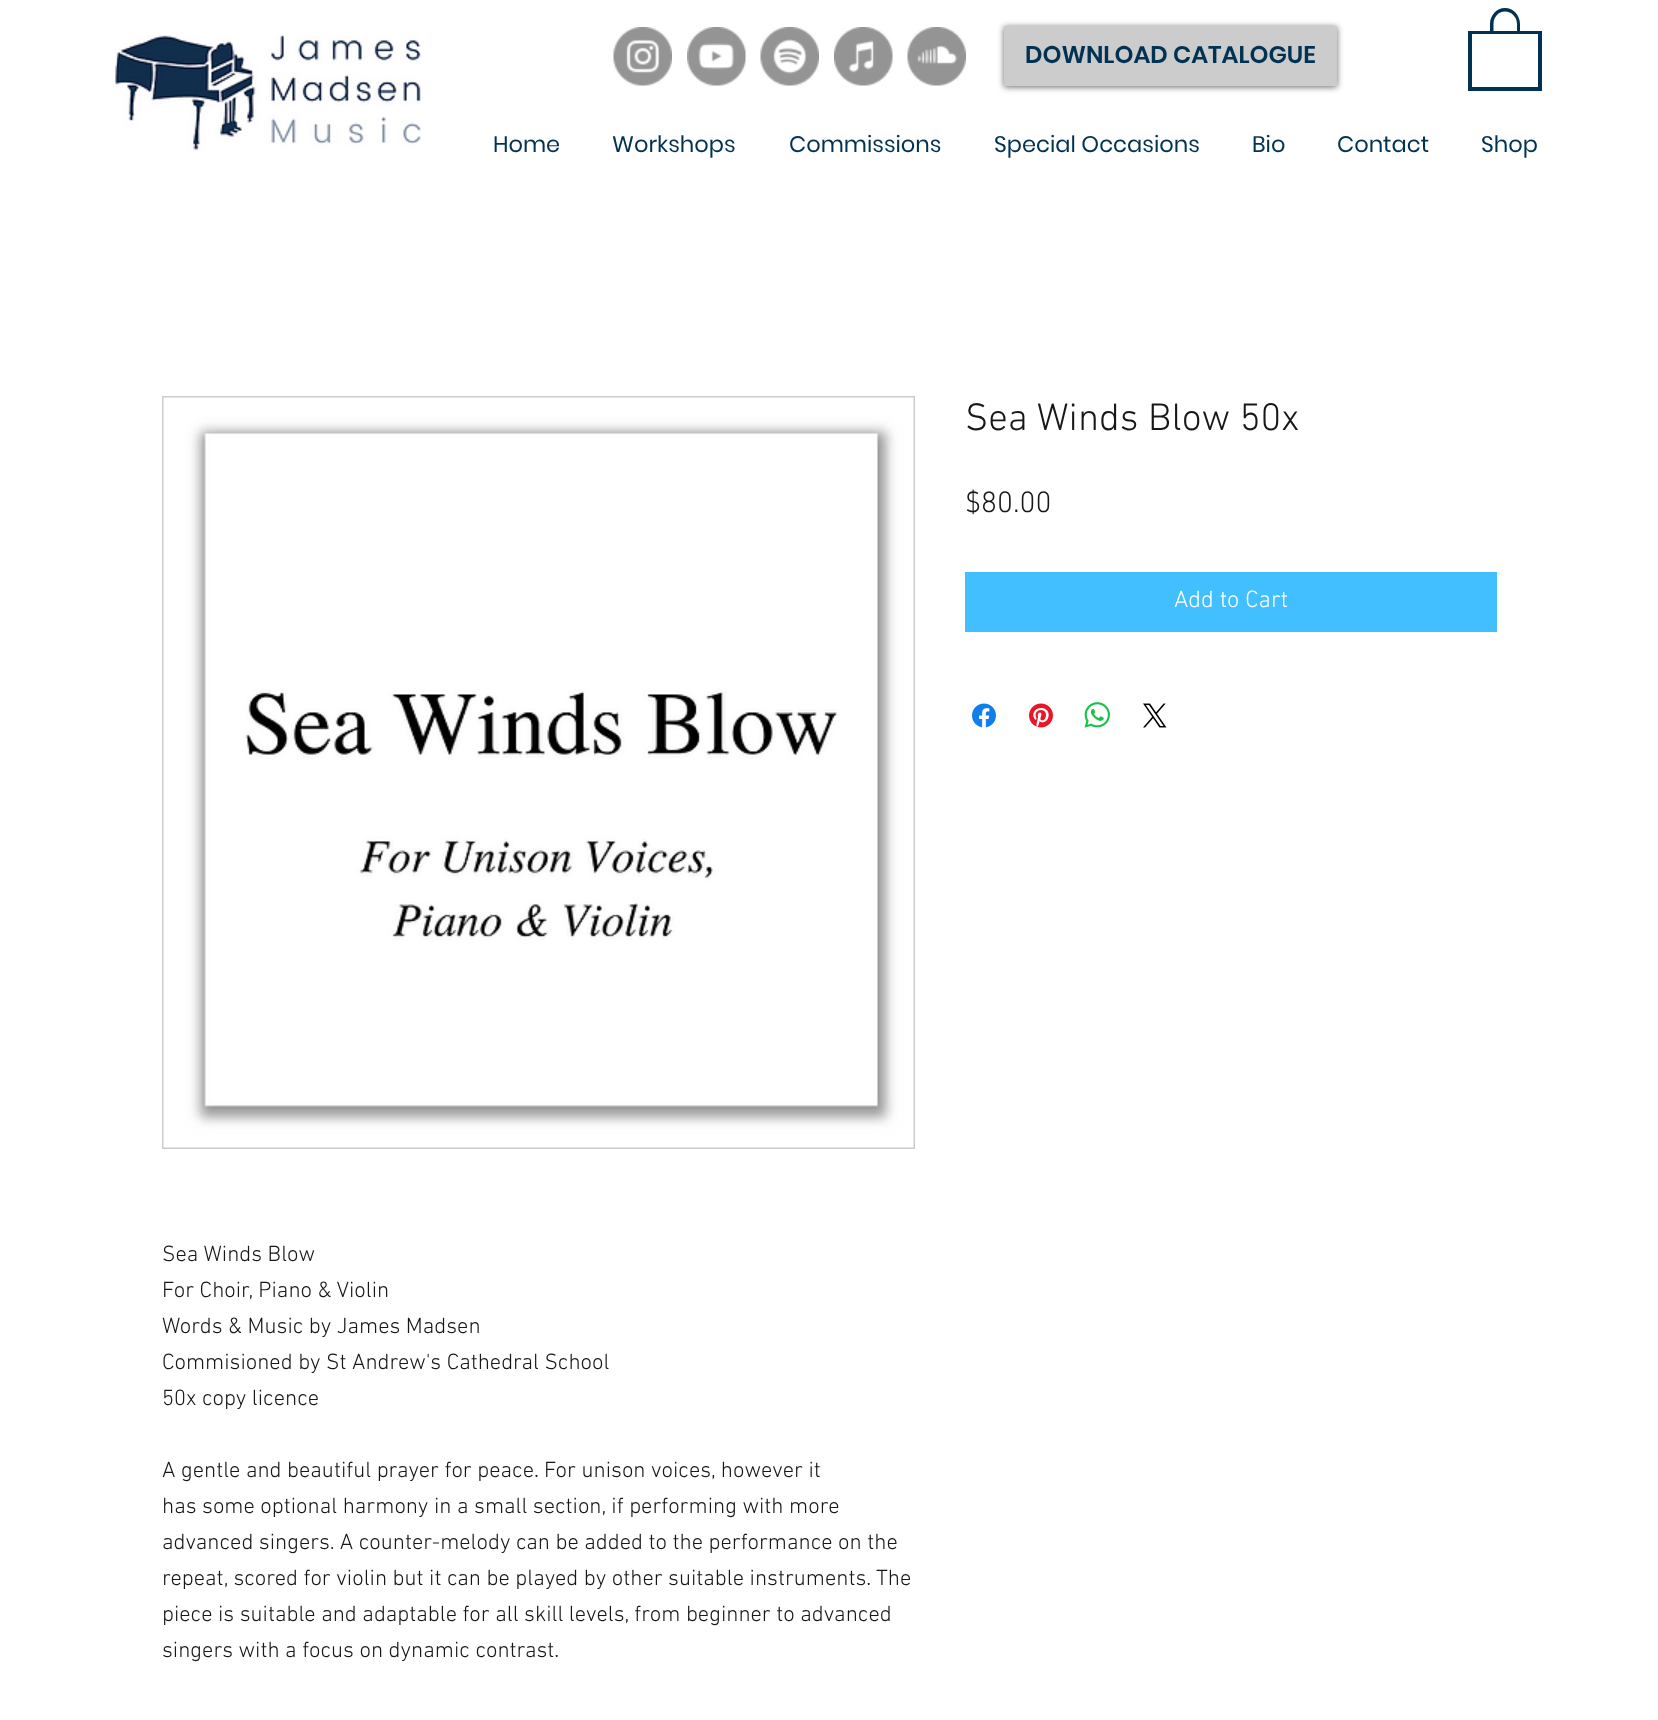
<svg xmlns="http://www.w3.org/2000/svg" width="1658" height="1720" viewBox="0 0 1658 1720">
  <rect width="100%" height="100%" fill="#fff"/>
  <image x="115" y="35" width="306" height="116" href="img/1.png"/>
  <image x="613" y="27" width="59" height="59" href="img/2.png"/>
  <image x="687" y="27" width="59" height="59" href="img/3.png"/>
  <image x="760" y="27" width="59" height="59" href="img/4.png"/>
  <image x="834" y="27" width="59" height="59" href="img/5.png"/>
  <image x="907" y="27" width="59" height="59" href="img/6.png"/>
  <path d="M1004 27h333v60H1004z" fill="#00000099" filter="blur(3px)"/>
  <path d="M1004 26h333v60H1004z" fill="#ccc"/>
  <path d="M1505 8C1496.5 8 1490 15.5 1490 24V32H1493.5V24C1493.5 17 1498.5 11.5 1505 11.5C1511.5 11.5 1517 17 1517 24V32H1520V31.5V24C1520 15.5 1513.5 8 1505 8Z" fill="#003254"/>
  <path d="M1538 34V87H1472V34H1538M1542 31H1468V91H1542Z" fill="#003254"/>
  <path d="M965 572h532v60H965z" fill="#41bfff"/>
  <image x="972" y="703" width="24" height="25" href="img/7.png"/>
  <image x="1029" y="703" width="24" height="25" href="img/8.png"/>
  <image x="1084" y="702" width="26" height="26" href="img/9.png"/>
  <image x="1143" y="703" width="24" height="25" href="img/10.png"/>
  <path d="M163 397h751v751H163z" fill="none" stroke="#ccc" stroke-width="2"/>
  <image x="163" y="397" width="751" height="751" href="img/11.png"/>
  <text x="1025" y="63" font-family="Poppins" font-size="24" font-weight="600" fill="#003254">DOWNLOAD CATALOGUE</text>
  <g font-family="Poppins" font-size="22.5" fill="#003254">
    <text x="493" y="152">Home</text>
    <text x="612" y="152">Workshops</text>
    <text x="789" y="152">Commissions</text>
    <text x="994" y="152">Special Occasions</text>
    <text x="1252" y="152">Bio</text>
    <text x="1337" y="152">Contact</text>
    <text x="1481" y="152">Shop</text>
  </g>
  <text x="965" y="430" font-family="'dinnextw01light'" font-size="39" font-weight="300" fill="#171717">Sea Winds Blow 50x</text>
  <text x="965" y="512" font-family="'dinnextw01light'" font-size="30" font-weight="300" fill="#171717">$80.00</text>
  <text x="1174" y="607" font-family="'dinnextw01light'" font-size="24" font-weight="300" fill="#fff">Add to Cart</text>
  <g font-family="'dinnextw01light'" font-size="22.5" font-weight="300" fill="#171717">
    <text x="162" y="1261">Sea Winds Blow</text>
    <text x="162" y="1297">For Choir, Piano &amp; Violin</text>
    <text x="162" y="1333">Words &amp; Music by James Madsen</text>
    <text x="162" y="1369">Commisioned by St Andrew's Cathedral School</text>
    <text x="162" y="1405">50x copy licence</text>
    <text x="162" y="1477">A gentle and beautiful prayer for peace. For unison voices, however it</text>
    <text x="162" y="1513">has some optional harmony in a small section, if performing with more</text>
    <text x="162" y="1549">advanced singers. A counter-melody can be added to the performance on the</text>
    <text x="162" y="1585">repeat, scored for violin but it can be played by other suitable instruments. The</text>
    <text x="162" y="1621">piece is suitable and adaptable for all skill levels, from beginner to advanced</text>
    <text x="162" y="1657">singers with a focus on dynamic contrast.</text>
  </g>
</svg>
